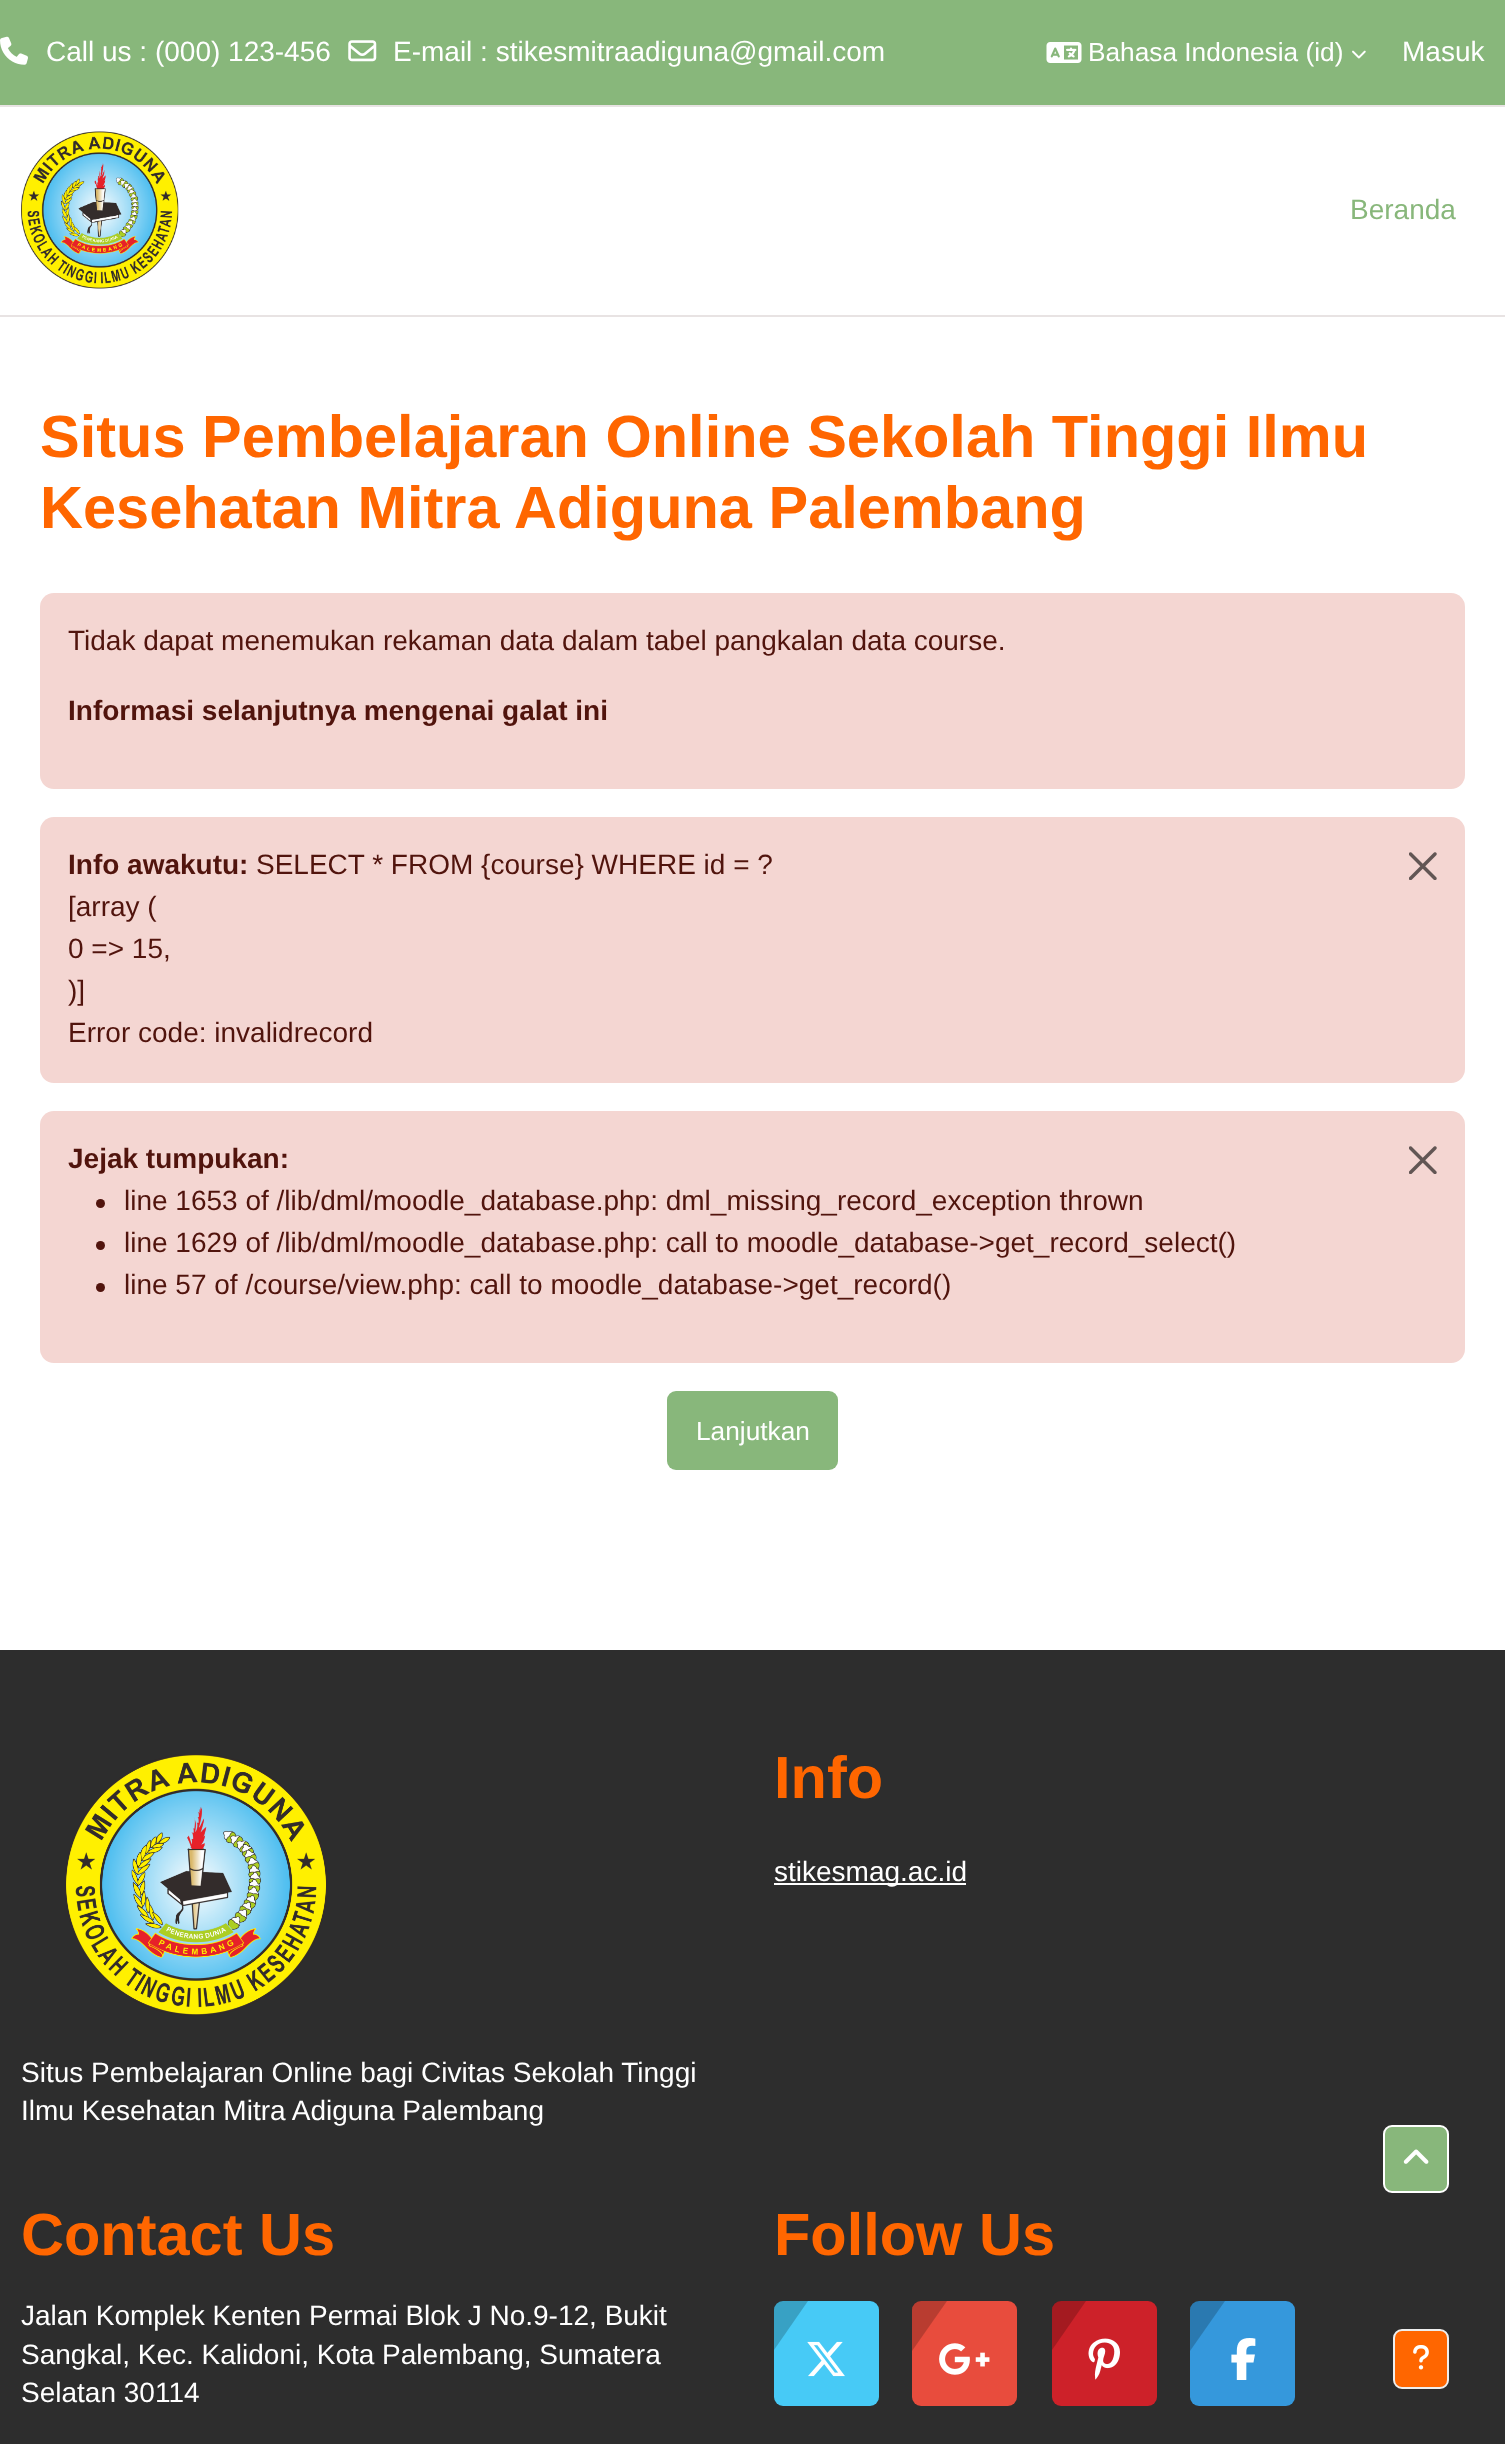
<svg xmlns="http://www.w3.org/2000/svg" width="1505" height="2444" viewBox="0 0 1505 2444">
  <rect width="100%" height="100%" fill="#fff"/>
  <path d="M0 0h1505v105H0z" fill="#88b77b"/>
  <path d="M0 105h1505v2H0z" fill="#e8e3e3"/>
  <image x="0" y="36" width="28" height="29" href="img/1.png"/>
  <image x="348" y="40" width="29" height="22" href="img/2.png"/>
  <image x="1046" y="42" width="36" height="21" href="img/3.png"/>
  <image x="1352" y="50" width="14" height="9" href="img/4.png"/>
  <path d="M0 315h1505v2H0z" fill="#e8e3e3"/>
  <image x="21" y="131" width="158" height="158" href="img/5.png"/>
  <rect x="40" y="593" width="1425" height="196" rx="14" fill="#f4d6d2"/>
  <rect x="40" y="817" width="1425" height="266" rx="14" fill="#f4d6d2"/>
  <image x="1409" y="852" width="28" height="28" href="img/6.png"/>
  <rect x="40" y="1111" width="1425" height="252" rx="14" fill="#f4d6d2"/>
  <image x="1409" y="1146" width="28" height="28" href="img/6.png"/>
  <circle cx="100.5" cy="1203.5" r="4.5" fill="#51140d"/>
  <circle cx="100.5" cy="1245.5" r="4.5" fill="#51140d"/>
  <circle cx="100.5" cy="1287.5" r="4.5" fill="#51140d"/>
  <rect x="667" y="1391" width="171" height="79" rx="9" fill="#88b77b"/>
  <path d="M0 1650h1505v794H0z" fill="#2d2d2d"/>
  <path d="M774 1883h192v2H774z" fill="#fff"/>
  <image x="65" y="1754" width="262" height="262" href="img/7.png"/>
  <rect x="774" y="2301" width="105" height="105" rx="9" fill="#47caf6"/>
  <image x="807" y="2341" width="38" height="36" href="img/8.png"/>
  <path d="M783 2301H808L774 2350V2310C774 2305 778 2301 783 2301Z" fill="#00000033"/>
  <rect x="912" y="2301" width="105" height="105" rx="9" fill="#e84c3d"/>
  <image x="939" y="2343" width="51" height="32" href="img/9.png"/>
  <path d="M921 2301H947L912 2351V2310C912 2305 916 2301 921 2301Z" fill="#00000033"/>
  <rect x="1052" y="2301" width="105" height="105" rx="9" fill="#cd2129"/>
  <image x="1088" y="2338" width="32" height="42" href="img/10.png"/>
  <path d="M1061 2301H1086L1052 2350V2310C1052 2305 1056 2301 1061 2301Z" fill="#00000033"/>
  <rect x="1190" y="2301" width="105" height="105" rx="9" fill="#3598dc"/>
  <image x="1231" y="2338" width="25" height="42" href="img/11.png"/>
  <path d="M1199 2301H1225L1190 2351V2310C1190 2305 1194 2301 1199 2301Z" fill="#00000033"/>
  <rect x="1394" y="2330" width="54" height="58" rx="8" fill="#f60" stroke="#eee" stroke-width="2"/>
  <image x="1413" y="2345" width="16" height="25" href="img/12.png"/>
  <rect x="1384" y="2126" width="64" height="66" rx="8" fill="#88b77b" stroke="#fff" stroke-width="2"/>
  <image x="1403" y="2149" width="26" height="15" href="img/13.png"/>
  <g font-family="Liberation Sans" font-size="28" fill="#fff">
    <text x="46" y="61">Call us : (000) 123-456</text>
    <text x="393" y="61">E-mail : stikesmitraadiguna@gmail.com</text>
  </g>
  <text x="1088" y="61" font-family="Liberation Sans" font-size="26.25" fill="#fff">Bahasa Indonesia (id)</text>
  <text x="1402" y="61" font-family="Liberation Sans" font-size="28" fill="#fff">Masuk</text>
  <text x="1350" y="219" font-family="Liberation Sans" font-size="28" fill="#88b77b">Beranda</text>
  <g font-family="Liberation Sans" font-size="59.5" font-weight="bold" fill="#f60">
    <text x="40" y="457">Situs Pembelajaran Online Sekolah Tinggi Ilmu</text>
    <text x="40" y="528">Kesehatan Mitra Adiguna Palembang</text>
  </g>
  <text x="68" y="650" font-family="Liberation Sans" font-size="28" fill="#51140d">Tidak dapat menemukan rekaman data dalam tabel pangkalan data course.</text>
  <g font-family="Liberation Sans" font-size="28" font-weight="bold" fill="#51140d">
    <text x="68" y="720">Informasi selanjutnya mengenai galat ini</text>
    <text x="68" y="874">Info awakutu:</text>
  </g>
  <g font-family="Liberation Sans" font-size="28" fill="#51140d">
    <text x="256" y="874">SELECT * FROM {course} WHERE id = ?</text>
    <text x="68" y="916">[array (</text>
    <text x="68" y="958">0 =&gt; 15,</text>
    <text x="68" y="1000">)]</text>
    <text x="68" y="1042">Error code: invalidrecord</text>
  </g>
  <text x="68" y="1168" font-family="Liberation Sans" font-size="28" font-weight="bold" fill="#51140d">Jejak tumpukan:</text>
  <g font-family="Liberation Sans" font-size="28" fill="#51140d">
    <text x="124" y="1210">line 1653 of /lib/dml/moodle_database.php: dml_missing_record_exception thrown</text>
    <text x="124" y="1252">line 1629 of /lib/dml/moodle_database.php: call to moodle_database-&gt;get_record_select()</text>
    <text x="124" y="1294">line 57 of /course/view.php: call to moodle_database-&gt;get_record()</text>
  </g>
  <text x="696" y="1440" font-family="Liberation Sans" font-size="26.25" fill="#fff">Lanjutkan</text>
  <text x="774" y="1798" font-family="Liberation Sans" font-size="59.5" font-weight="bold" fill="#f60">Info</text>
  <g font-family="Liberation Sans" font-size="28" fill="#fff">
    <text x="774" y="1881">stikesmag.ac.id</text>
    <text x="21" y="2082">Situs Pembelajaran Online bagi Civitas Sekolah Tinggi</text>
    <text x="21" y="2120">Ilmu Kesehatan Mitra Adiguna Palembang</text>
  </g>
  <text x="21" y="2255" font-family="Liberation Sans" font-size="59.5" font-weight="bold" fill="#f60">Contact Us</text>
  <g font-family="Liberation Sans" font-size="28" fill="#fff">
    <text x="21" y="2325">Jalan Komplek Kenten Permai Blok J No.9-12, Bukit</text>
    <text x="21" y="2364">Sangkal, Kec. Kalidoni, Kota Palembang, Sumatera</text>
    <text x="21" y="2402">Selatan 30114</text>
  </g>
  <text x="774" y="2255" font-family="Liberation Sans" font-size="59.5" font-weight="bold" fill="#f60">Follow Us</text>
</svg>
